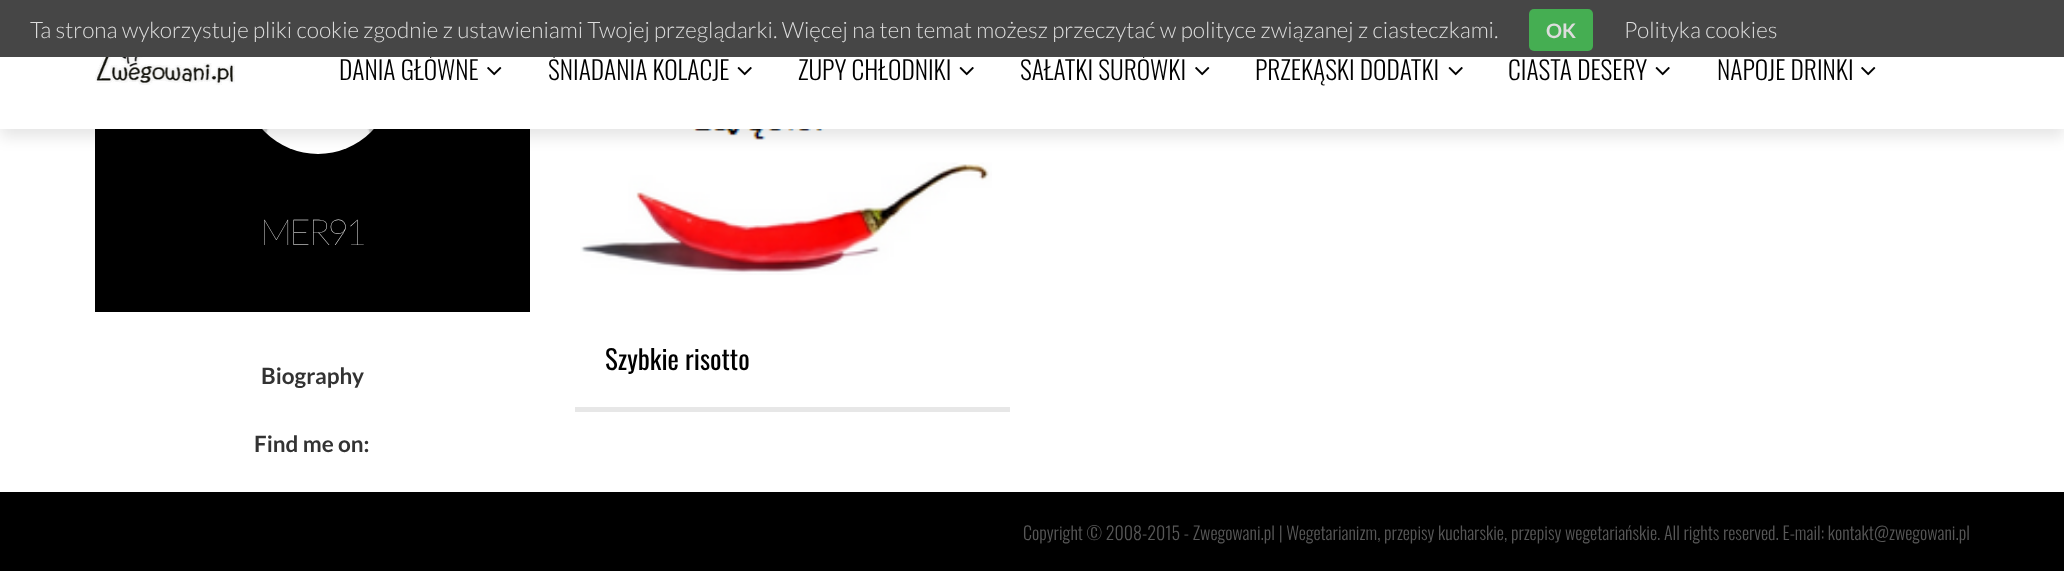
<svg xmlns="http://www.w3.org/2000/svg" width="2064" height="571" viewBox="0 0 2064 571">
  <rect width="100%" height="100%" fill="#fff"/>
  <path d="M95 129h435v183H95z" fill="#000"/>
  <image x="262" y="129" width="112" height="25" href="img/4.png"/>
  <image x="580" y="129" width="412" height="146" href="img/5.png"/>
  <path d="M0 8h2064v129H0z" fill="#0000001a" filter="blur(7.5px)"/>
  <path d="M0 57h2064v72H0z" fill="#fff"/>
  <image x="95" y="57" width="140" height="28" href="img/1.png"/>
  <image x="487" y="67" width="15" height="9" href="img/2.png"/>
  <image x="737" y="67" width="15" height="9" href="img/3.png"/>
  <image x="959" y="67" width="15" height="9" href="img/3.png"/>
  <image x="1195" y="67" width="15" height="9" href="img/2.png"/>
  <image x="1448" y="67" width="15" height="9" href="img/3.png"/>
  <image x="1655" y="67" width="15" height="9" href="img/3.png"/>
  <image x="1861" y="67" width="15" height="9" href="img/2.png"/>
  <path d="M575 407h435v5H575z" fill="#e7e7e7"/>
  <path d="M0 492h2064v79H0z" fill="#000"/>
  <g font-family="Oswald" font-size="25.5" font-weight="300" fill="#000">
    <text x="339" y="80">DANIA GŁÓWNE</text>
    <text x="548" y="80">ŚNIADANIA KOLACJE</text>
    <text x="798" y="80">ZUPY CHŁODNIKI</text>
    <text x="1020" y="80">SAŁATKI SURÓWKI</text>
  </g>
  <path d="M0 0h2064v57H0z" fill="#464646"/>
  <text x="1624" y="38" font-family="Lato" font-size="22.5" font-weight="300" fill="#ddd">Polityka cookies</text>
  <rect x="1529" y="9" width="64" height="42" rx="5" fill="#45ae52"/>
  <text x="1546" y="38" font-family="Lato" font-size="20" font-weight="bold" fill="#ddd">OK</text>
  <text x="30" y="38" font-family="Lato" font-size="22.5" font-weight="300" fill="#ddd">Ta strona wykorzystuje pliki cookie zgodnie z ustawieniami Twojej przeglądarki. Więcej na ten temat możesz przeczytać w polityce związanej z ciasteczkami.</text>
  <g font-family="Oswald" font-size="25.5" font-weight="300" fill="#000">
    <text x="1255" y="80">PRZEKĄSKI DODATKI</text>
    <text x="1508" y="80">CIASTA DESERY</text>
    <text x="1717" y="80">NAPOJE DRINKI</text>
  </g>
  <text x="260" y="245" font-family="Lato" font-size="36" font-weight="100" letter-spacing="-3" fill="#fff">MER91</text>
  <g font-family="Lato" font-size="22.5" font-weight="bold" fill="#333">
    <text x="261" y="384">Biography</text>
    <text x="254" y="452">Find me on:</text>
  </g>
  <text x="605" y="370" font-family="Oswald" font-size="27" fill="#000">Szybkie risotto</text>
  <text x="1023" y="540" font-family="Oswald" font-size="18" font-weight="300" fill="#585858">Copyright © 2008-2015 - Zwegowani.pl | Wegetarianizm, przepisy kucharskie, przepisy wegetariańskie. All rights reserved. E-mail: kontakt@zwegowani.pl</text>
</svg>
